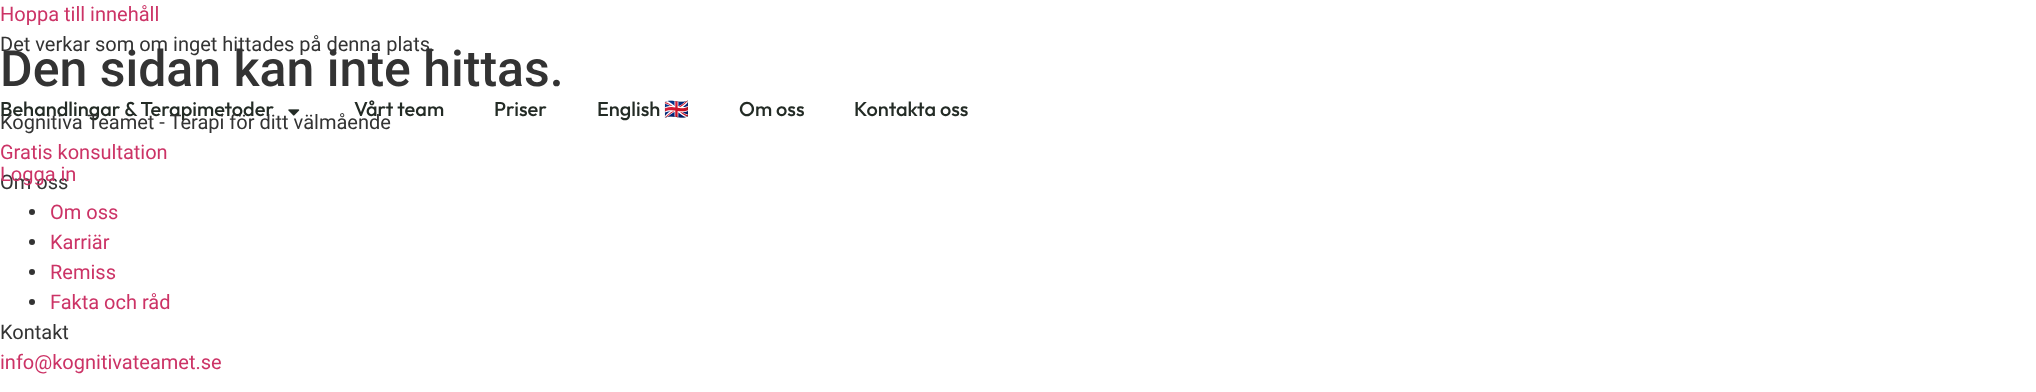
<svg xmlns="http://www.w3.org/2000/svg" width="2036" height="392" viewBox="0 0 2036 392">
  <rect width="100%" height="100%" fill="#fff"/>
  <circle cx="32" cy="212" r="3" fill="#333"/>
  <circle cx="32" cy="242" r="3" fill="#333"/>
  <circle cx="32" cy="272" r="3" fill="#333"/>
  <circle cx="32" cy="302" r="3" fill="#333"/>
  <text x="0" y="21" font-family="Roboto" font-size="20" fill="#c36">Hoppa till innehåll</text>
  <text x="0" y="51" font-family="Roboto" font-size="20" fill="#333">Det verkar som om inget hittades på denna plats.</text>
  <text x="0" y="86" font-family="Roboto" font-size="50" font-weight="500" fill="#333">Den sidan kan inte hittas.</text>
  <g font-family="Outfit" font-size="20" font-weight="500" fill="#232b25">
    <text x="0" y="116">Behandlingar &amp; Terapimetoder</text>
    <text x="354" y="116">Vårt team</text>
    <text x="494" y="116">Priser</text>
    <text x="597" y="116">English</text>
  </g>
  <text x="664" y="116" font-family="Noto Color Emoji" font-size="20" fill="#232b25">🇬🇧</text>
  <g font-family="Outfit" font-size="20" font-weight="500" fill="#232b25">
    <text x="739" y="116">Om oss</text>
    <text x="854" y="116">Kontakta oss</text>
  </g>
  <text x="0" y="129" font-family="Roboto" font-size="20" fill="#333">Kognitiva Teamet - Terapi för ditt välmående</text>
  <image x="288" y="109" width="12" height="7" href="img/1.png"/>
  <text x="0" y="159" font-family="Roboto" font-size="20" fill="#c36">Gratis konsultation</text>
  <text x="0" y="189" font-family="Roboto" font-size="20" fill="#333">Om oss</text>
  <g font-family="Roboto" font-size="20" fill="#c36">
    <text x="0" y="181">Logga in</text>
    <text x="50" y="219">Om oss</text>
    <text x="50" y="249">Karriär</text>
    <text x="50" y="279">Remiss</text>
    <text x="50" y="309">Fakta och råd</text>
  </g>
  <text x="0" y="339" font-family="Roboto" font-size="20" fill="#333">Kontakt</text>
  <text x="0" y="369" font-family="Roboto" font-size="20" fill="#c36">info@kognitivateamet.se</text>
</svg>
